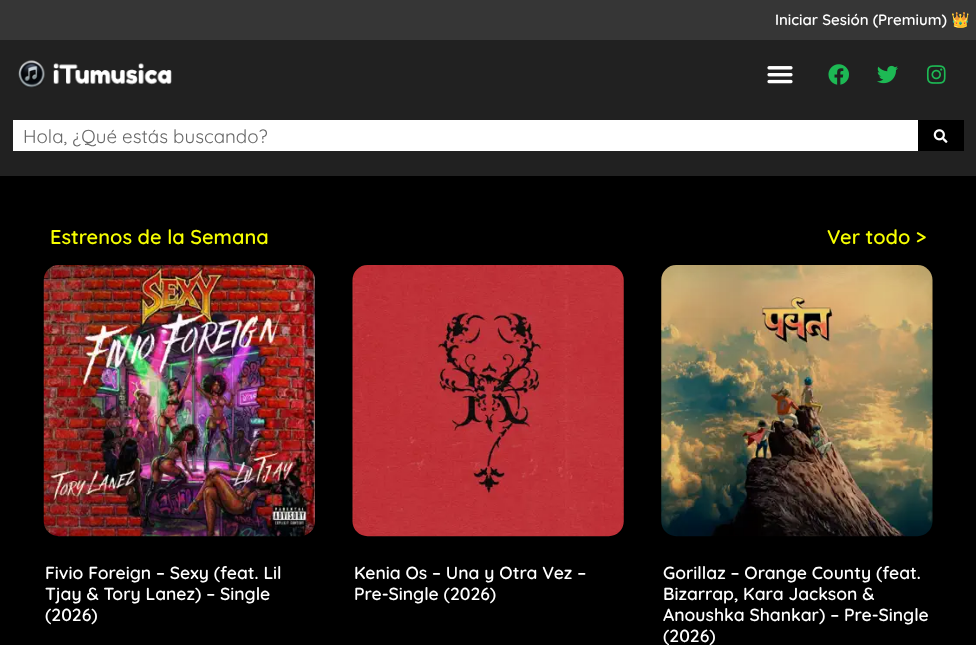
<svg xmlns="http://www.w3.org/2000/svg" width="976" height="645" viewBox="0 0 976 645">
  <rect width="100%" height="100%" fill="#363636"/>
  <path d="M0 40h976v136H0z" fill="#212121"/>
  <image x="18" y="60" width="154" height="28" href="img/1.png"/>
  <image x="767" y="66" width="26" height="18" href="img/2.png"/>
  <image x="828" y="64" width="21" height="21" href="img/3.png"/>
  <image x="877" y="65" width="21" height="19" href="img/4.png"/>
  <image x="926" y="65" width="20" height="19" href="img/5.png"/>
  <path d="M13 120h905v31H13z" fill="#fff"/>
  <path d="M918 120h46v31H918z" fill="#000"/>
  <image x="933" y="129" width="15" height="14" href="img/6.png"/>
  <path d="M0 176h976v469H0z" fill="#000"/>
  <image x="43" y="265" width="272" height="272" href="img/7.png"/>
  <image x="352" y="265" width="272" height="272" href="img/8.png"/>
  <image x="661" y="265" width="272" height="272" href="img/9.png"/>
  <text x="775" y="25" font-family="Quicksand" font-size="15" font-weight="600" fill="#fff">Iniciar Sesión (Premium)</text>
  <text x="951" y="25" font-family="Noto Color Emoji" font-size="15" font-weight="bold" fill="#fff">👑</text>
  <text x="23" y="143" font-family="Quicksand" font-size="18.75" fill="#676767">Hola, ¿Qué estás buscando?</text>
  <g font-family="Quicksand" font-size="20" font-weight="600" fill="#f7ff00">
    <text x="50" y="244">Estrenos de la Semana</text>
    <text x="827" y="244">Ver todo &gt;</text>
  </g>
  <g font-family="Quicksand" font-size="17.5" font-weight="600" fill="#fff">
    <text x="45" y="579">Fivio Foreign – Sexy (feat. Lil</text>
    <text x="45" y="600">Tjay &amp; Tory Lanez) – Single</text>
    <text x="45" y="621">(2026)</text>
    <text x="354" y="579">Kenia Os – Una y Otra Vez –</text>
    <text x="354" y="600">Pre-Single (2026)</text>
    <text x="663" y="579">Gorillaz – Orange County (feat.</text>
    <text x="663" y="600">Bizarrap, Kara Jackson &amp;</text>
    <text x="663" y="621">Anoushka Shankar) – Pre-Single</text>
    <text x="663" y="642">(2026)</text>
  </g>
</svg>
